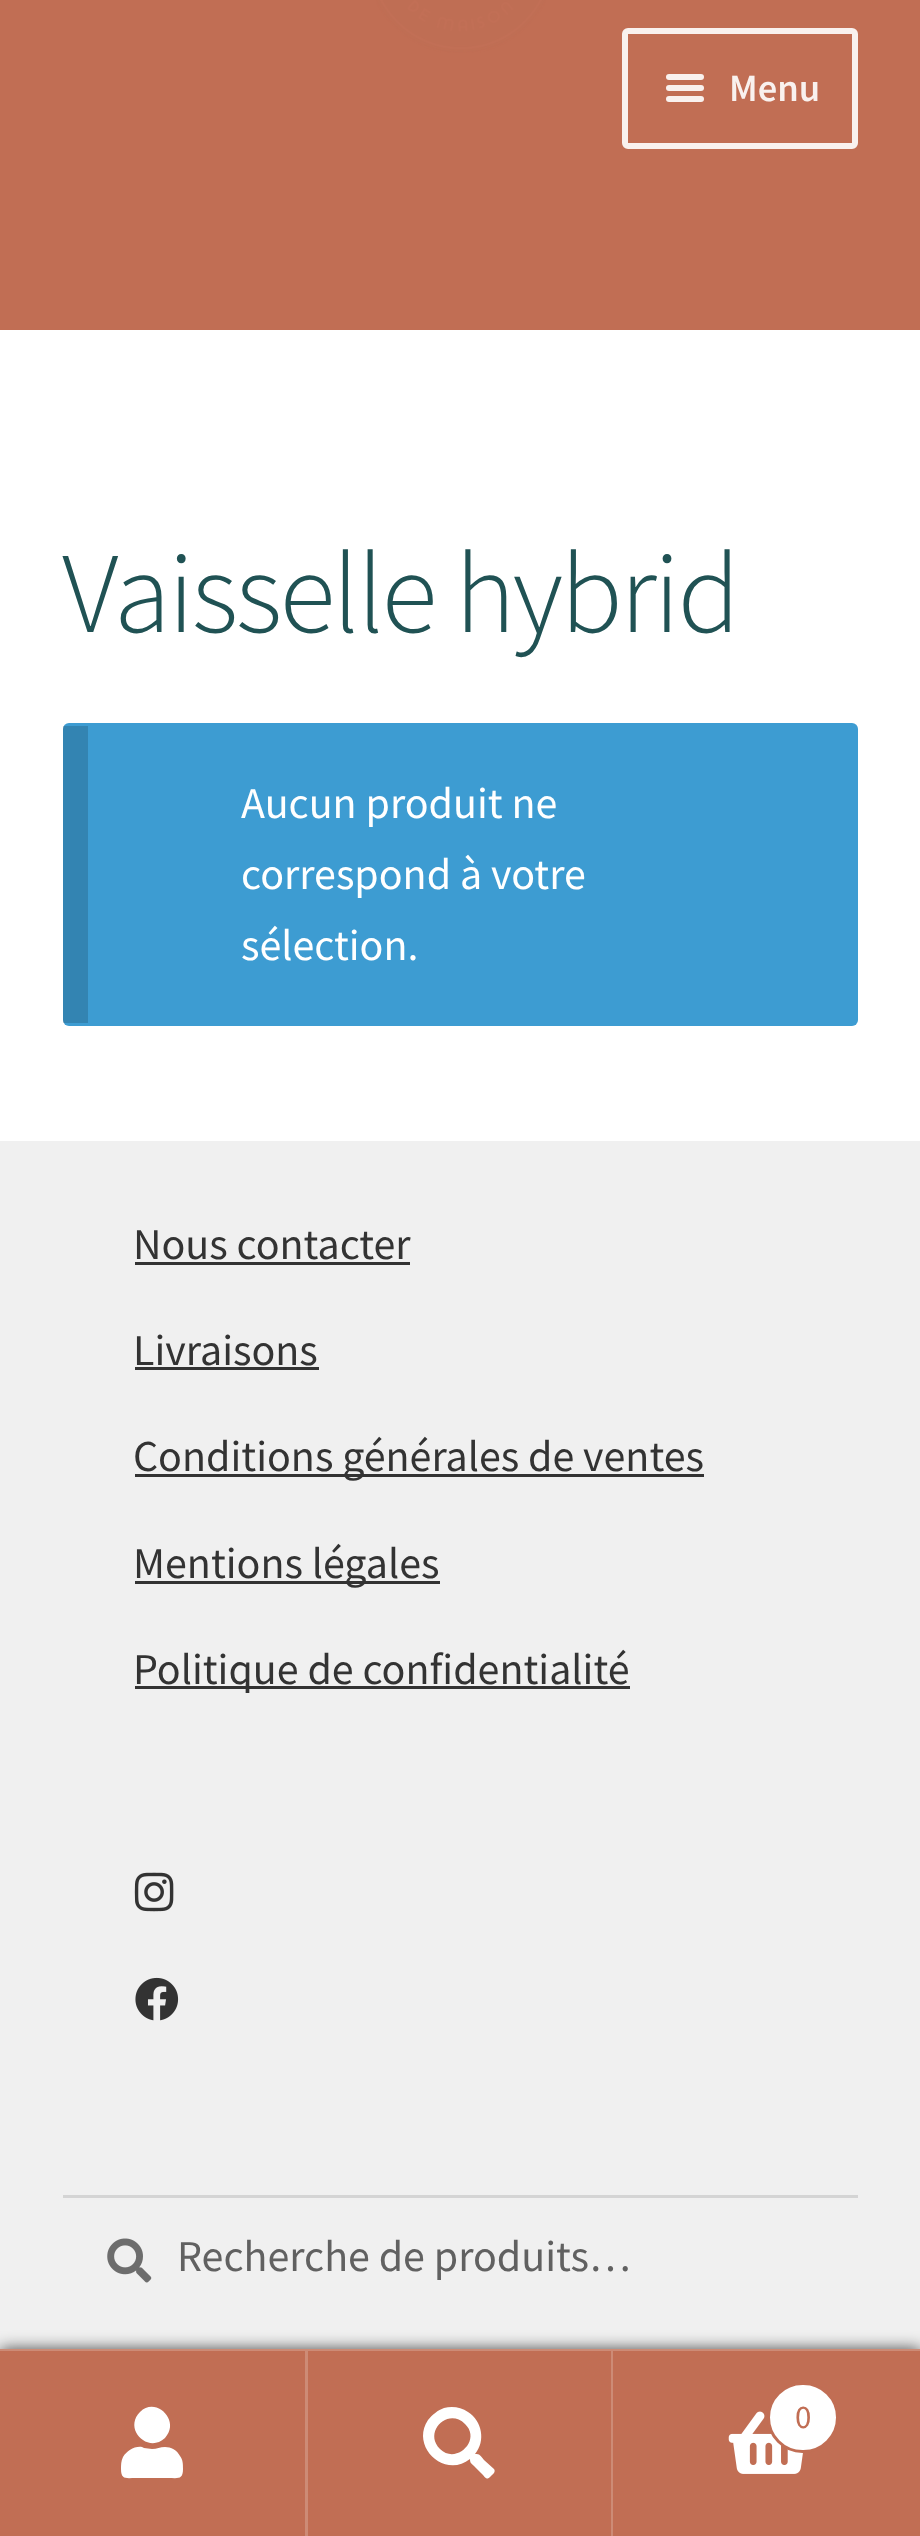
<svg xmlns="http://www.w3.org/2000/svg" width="920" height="2536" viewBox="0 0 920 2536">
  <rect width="100%" height="100%" fill="#fff"/>
  <path d="M0 0h920v330H0z" fill="#c16e54"/>
  <image x="376" y="0" width="170" height="53" href="img/1.png"/>
  <rect x="625" y="31" width="230" height="115" rx="3" fill="none" stroke="#f9f1ee" stroke-width="6"/>
  <rect x="666" y="74" width="38" height="6" rx="3" fill="#f9f1ee"/>
  <rect x="666" y="85" width="38" height="6" rx="3" fill="#f9f1ee"/>
  <rect x="666" y="96" width="38" height="6" rx="3" fill="#f9f1ee"/>
  <rect x="63" y="723" width="795" height="303" rx="6" fill="#3d9cd2"/>
  <path d="M63 726h25v297H63z" fill="#00000026"/>
  <path d="M0 1141h920v1208H0z" fill="#f0f0f0"/>
  <path d="M135 1262h275v3H135z" fill="#333"/>
  <path d="M135 1367h184v3H135z" fill="#333"/>
  <path d="M135 1474h569v3H135z" fill="#333"/>
  <path d="M135 1581h305v3H135z" fill="#333"/>
  <path d="M135 1686h495v3H135z" fill="#333"/>
  <image x="134" y="1872" width="40" height="40" href="img/2.png"/>
  <image x="135" y="1977" width="44" height="44" href="img/3.png"/>
  <image x="107" y="2238" width="45" height="45" href="img/4.png"/>
  <path d="M63 2195h795v3H63z" fill="#d4d4d4"/>
  <path d="M0 2349h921v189H0z" fill="#000000b3" filter="blur(8px)"/>
  <path d="M0 2349h920v2H0z" fill="#cd8b76"/>
  <path d="M0 2351h305v185H0z" fill="#c16e54"/>
  <path d="M305 2351h3v185H305z" fill="#cd8b76"/>
  <path d="M165 2438C148 2454 123 2429 140 2412C156 2396 181 2421 165 2438ZM165 2447C171 2447 177 2450 180 2456C183 2460 183 2464 183 2469C183 2480 178 2478 168 2478H136C126 2478 121 2480 121 2469C121 2465 121 2461 123 2457C127 2451 134 2446 142 2447L144 2448L152 2449C157 2449 160 2447 165 2447Z" fill="#fff"/>
  <path d="M308 2351h303v185H308z" fill="#c16e54"/>
  <path d="M611 2351h2v185H611z" fill="#cd8b76"/>
  <path d="M494 2469C496 2472 493 2474 491 2476C487 2480 486 2479 483 2475L474 2466C471 2463 470 2463 470 2459C445 2479 410 2447 428 2420C432 2415 438 2410 444 2408C452 2406 461 2407 468 2412C482 2421 486 2441 475 2454C480 2454 480 2455 484 2460ZM440 2449C456 2465 482 2440 465 2424C448 2407 423 2432 440 2449Z" fill="#fff"/>
  <path d="M613 2351h307v185H613z" fill="#c16e54"/>
  <image x="728" y="2411" width="75" height="63" href="img/5.png"/>
  <rect x="768.5" y="2383.5" width="69" height="68" rx="34" fill="#fff" stroke="#c16e54" stroke-width="3"/>
  <text x="729" y="101" font-family="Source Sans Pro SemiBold" font-size="38.5" font-weight="600" fill="#f9f1ee">Menu</text>
  <text x="62" y="632" font-family="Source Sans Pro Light" font-size="115.25" font-weight="300" letter-spacing="-2.75" fill="#205254">Vaisselle hybrid</text>
  <g font-family="Source Sans Pro" font-size="44" fill="#fff">
    <text x="241" y="818">Aucun produit ne</text>
    <text x="241" y="889">correspond à votre</text>
    <text x="241" y="960">sélection.</text>
  </g>
  <g font-family="Source Sans Pro" font-size="44" fill="#333">
    <text x="133" y="1259">Nous contacter</text>
    <text x="133" y="1365">Livraisons</text>
    <text x="133" y="1471">Conditions générales de ventes</text>
    <text x="133" y="1578">Mentions légales</text>
    <text x="133" y="1684">Politique de confidentialité</text>
  </g>
  <text x="177" y="2271" font-family="Source Sans Pro" font-size="44" fill="#616161">Recherche de produits…</text>
  <text x="795" y="2428" font-family="Source Sans Pro" font-size="33" fill="#c16e54">0</text>
</svg>
